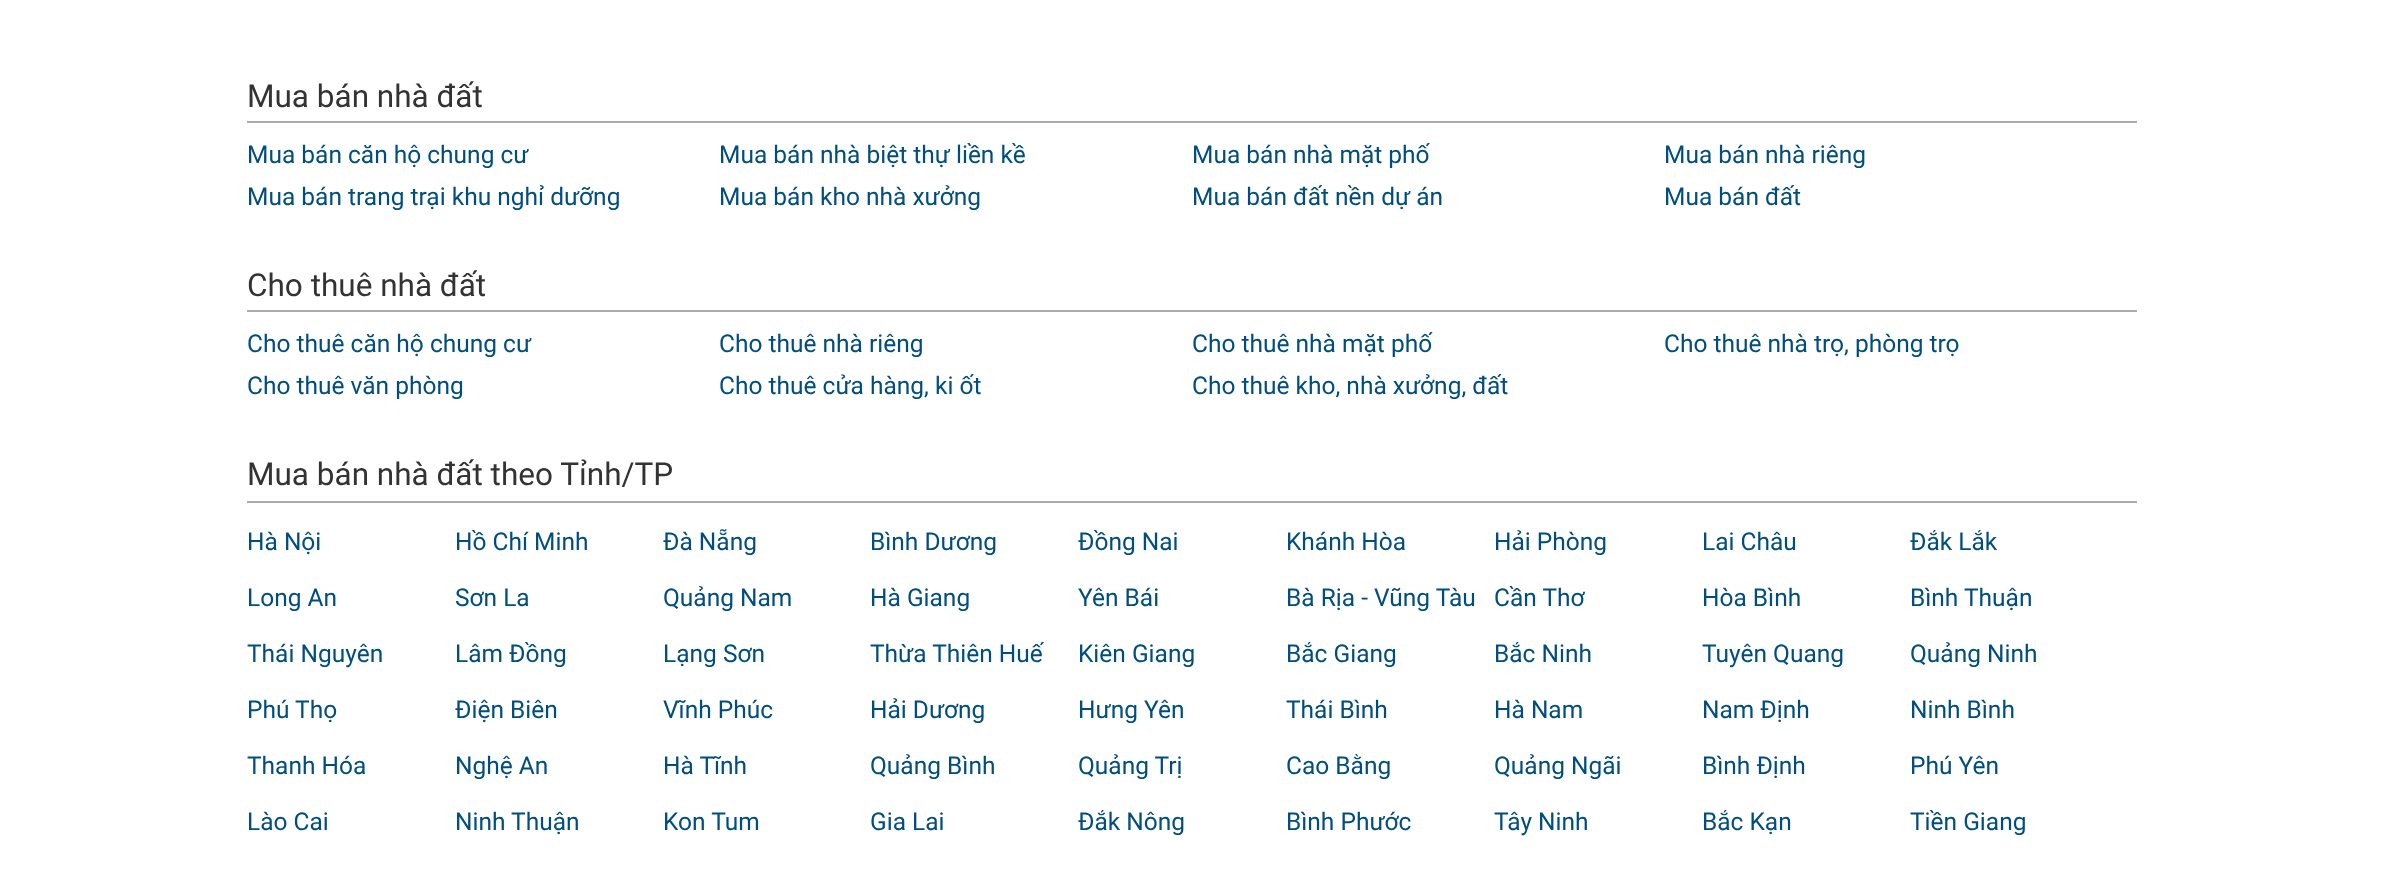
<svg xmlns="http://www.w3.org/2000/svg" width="2383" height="872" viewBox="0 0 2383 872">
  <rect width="100%" height="100%" fill="#fff"/>
  <path d="M247 121h1890v2H247z" fill="#ababab"/>
  <path d="M247 310h1890v2H247z" fill="#ababab"/>
  <path d="M247 501h1890v2H247z" fill="#ababab"/>
  <text x="247" y="107" font-family="Roboto" font-size="31.5" fill="#333">Mua bán nhà đất</text>
  <g font-family="Roboto" font-size="24.5" fill="#004e7f">
    <text x="247" y="163">Mua bán căn hộ chung cư</text>
    <text x="719" y="163">Mua bán nhà biệt thự liền kề</text>
    <text x="1192" y="163">Mua bán nhà mặt phố</text>
    <text x="1664" y="163">Mua bán nhà riêng</text>
    <text x="247" y="205">Mua bán trang trại khu nghỉ dưỡng</text>
    <text x="719" y="205">Mua bán kho nhà xưởng</text>
    <text x="1192" y="205">Mua bán đất nền dự án</text>
    <text x="1664" y="205">Mua bán đất</text>
  </g>
  <text x="247" y="296" font-family="Roboto" font-size="31.5" fill="#333">Cho thuê nhà đất</text>
  <g font-family="Roboto" font-size="24.5" fill="#004e7f">
    <text x="247" y="352">Cho thuê căn hộ chung cư</text>
    <text x="719" y="352">Cho thuê nhà riêng</text>
    <text x="1192" y="352">Cho thuê nhà mặt phố</text>
    <text x="1664" y="352">Cho thuê nhà trọ, phòng trọ</text>
    <text x="247" y="394">Cho thuê văn phòng</text>
    <text x="719" y="394">Cho thuê cửa hàng, ki ốt</text>
    <text x="1192" y="394">Cho thuê kho, nhà xưởng, đất</text>
  </g>
  <text x="247" y="485" font-family="Roboto" font-size="31.5" fill="#333">Mua bán nhà đất theo Tỉnh/TP</text>
  <g font-family="Roboto" font-size="24.5" fill="#004e7f">
    <text x="247" y="550">Hà Nội</text>
    <text x="455" y="550">Hồ Chí Minh</text>
    <text x="663" y="550">Đà Nẵng</text>
    <text x="870" y="550">Bình Dương</text>
    <text x="1078" y="550">Đồng Nai</text>
    <text x="1286" y="550">Khánh Hòa</text>
    <text x="1494" y="550">Hải Phòng</text>
    <text x="1702" y="550">Lai Châu</text>
    <text x="1910" y="550">Đắk Lắk</text>
    <text x="247" y="606">Long An</text>
    <text x="455" y="606">Sơn La</text>
    <text x="663" y="606">Quảng Nam</text>
    <text x="870" y="606">Hà Giang</text>
    <text x="1078" y="606">Yên Bái</text>
    <text x="1286" y="606">Bà Rịa - Vũng Tàu</text>
    <text x="1494" y="606">Cần Thơ</text>
    <text x="1702" y="606">Hòa Bình</text>
    <text x="1910" y="606">Bình Thuận</text>
    <text x="247" y="662">Thái Nguyên</text>
    <text x="455" y="662">Lâm Đồng</text>
    <text x="663" y="662">Lạng Sơn</text>
    <text x="870" y="662">Thừa Thiên Huế</text>
    <text x="1078" y="662">Kiên Giang</text>
    <text x="1286" y="662">Bắc Giang</text>
    <text x="1494" y="662">Bắc Ninh</text>
    <text x="1702" y="662">Tuyên Quang</text>
    <text x="1910" y="662">Quảng Ninh</text>
    <text x="247" y="718">Phú Thọ</text>
    <text x="455" y="718">Điện Biên</text>
    <text x="663" y="718">Vĩnh Phúc</text>
    <text x="870" y="718">Hải Dương</text>
    <text x="1078" y="718">Hưng Yên</text>
    <text x="1286" y="718">Thái Bình</text>
    <text x="1494" y="718">Hà Nam</text>
    <text x="1702" y="718">Nam Định</text>
    <text x="1910" y="718">Ninh Bình</text>
    <text x="247" y="774">Thanh Hóa</text>
    <text x="455" y="774">Nghệ An</text>
    <text x="663" y="774">Hà Tĩnh</text>
    <text x="870" y="774">Quảng Bình</text>
    <text x="1078" y="774">Quảng Trị</text>
    <text x="1286" y="774">Cao Bằng</text>
    <text x="1494" y="774">Quảng Ngãi</text>
    <text x="1702" y="774">Bình Định</text>
    <text x="1910" y="774">Phú Yên</text>
    <text x="247" y="830">Lào Cai</text>
    <text x="455" y="830">Ninh Thuận</text>
    <text x="663" y="830">Kon Tum</text>
    <text x="870" y="830">Gia Lai</text>
    <text x="1078" y="830">Đắk Nông</text>
    <text x="1286" y="830">Bình Phước</text>
    <text x="1494" y="830">Tây Ninh</text>
    <text x="1702" y="830">Bắc Kạn</text>
    <text x="1910" y="830">Tiền Giang</text>
  </g>
</svg>
